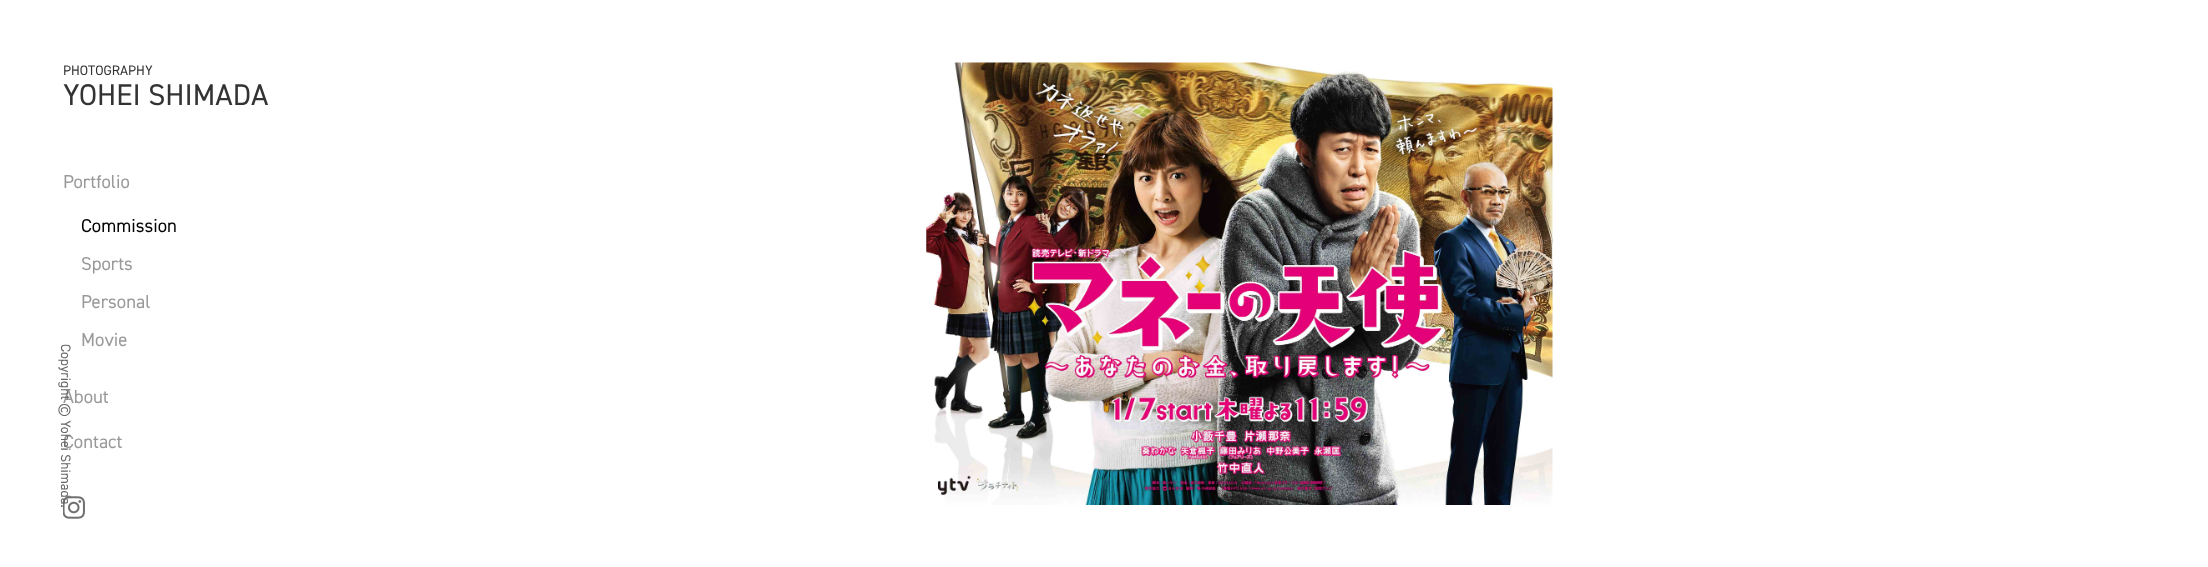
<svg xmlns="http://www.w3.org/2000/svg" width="2208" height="567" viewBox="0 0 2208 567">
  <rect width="100%" height="100%" fill="#fff"/>
  <image x="63" y="496" width="22" height="23" href="img/1.png"/>
  <image x="926" y="62" width="627" height="443" href="img/2.png"/>
  <text x="63" y="75" font-family="'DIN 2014'" font-size="13.75" fill="#333">PHOTOGRAPHY</text>
  <text x="63" y="105" font-family="'DIN 2014'" font-size="30" fill="#333">YOHEI SHIMADA</text>
  <text x="63" y="188" font-family="'DIN 2014'" font-size="18.75" fill="#999">Portfolio</text>
  <text x="81" y="232" font-family="'DIN 2014'" font-size="18.75" fill="#000">Commission</text>
  <g font-family="'DIN 2014'" font-size="18.75" fill="#999">
    <text x="81" y="270">Sports</text>
    <text x="81" y="308">Personal</text>
    <text x="81" y="346">Movie</text>
    <text x="63" y="403">About</text>
    <text x="63" y="448">Contact</text>
  </g>
  <text x="61" y="344" transform="rotate(90 61 344)" font-family="'DIN 2014'" font-size="13.75" fill="#666">Copyright © Yohei Shimada.</text>
</svg>
